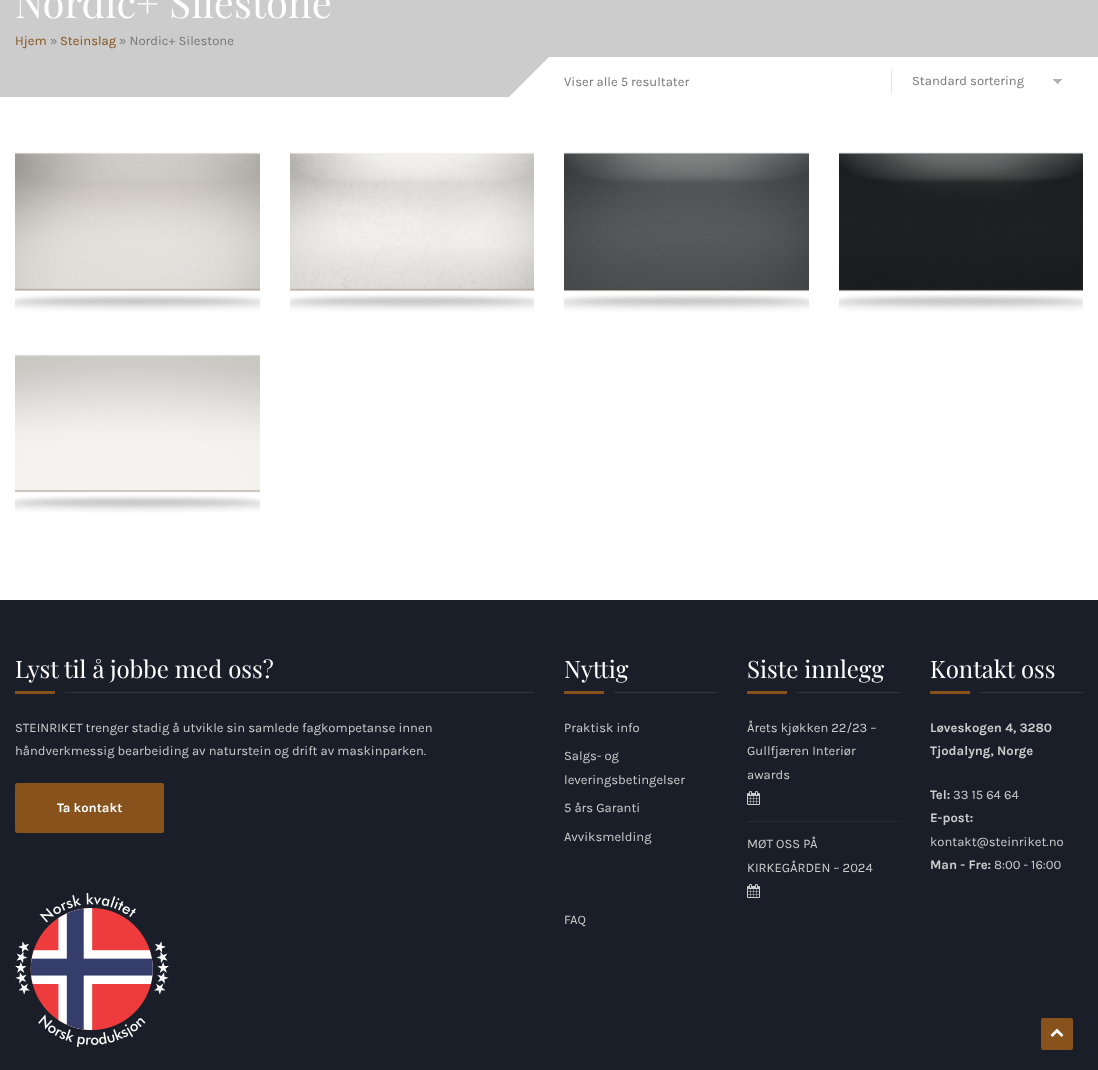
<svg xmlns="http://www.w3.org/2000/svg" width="1098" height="1070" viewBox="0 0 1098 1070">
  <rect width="100%" height="100%" fill="#fff"/>
  <path d="M0 0h1098v97H0z" fill="#ccc"/>
  <path d="M549 57h549v40H549z" fill="#fff"/>
  <path d="M549 57V107H499Z" fill="#fff"/>
  <path d="M891 69h1v24H891z" fill="#e6e6e6"/>
  <image x="1053" y="79" width="9" height="5" href="img/1.png"/>
  <image x="15" y="152" width="245" height="160" href="img/2.png"/>
  <image x="290" y="152" width="244" height="160" href="img/3.png"/>
  <image x="564" y="152" width="245" height="160" href="img/4.png"/>
  <image x="839" y="152" width="244" height="160" href="img/5.png"/>
  <image x="15" y="354" width="245" height="159" href="img/6.png"/>
  <path d="M0 600h1098v470H0z" fill="#191e28"/>
  <path d="M15 691h40v3H15z" fill="#87521c"/>
  <path d="M65 692h469v1H65z" fill="#30353e"/>
  <rect x="15" y="783" width="149" height="50" rx="2" fill="#87521c"/>
  <image x="15" y="893" width="154" height="154" href="img/7.png"/>
  <path d="M564 691h40v3H564z" fill="#87521c"/>
  <path d="M614 692h103v1H614z" fill="#30353e"/>
  <path d="M747 691h40v3H747z" fill="#87521c"/>
  <path d="M797 692h103v1H797z" fill="#30353e"/>
  <path d="M747 821.5H900" fill="none" stroke="#30353e" stroke-dasharray="1 1"/>
  <image x="747" y="791" width="13" height="14" href="img/8.png"/>
  <image x="747" y="884" width="13" height="14" href="img/8.png"/>
  <path d="M930 691h40v3H930z" fill="#87521c"/>
  <path d="M980 692h103v1H980z" fill="#30353e"/>
  <rect x="1041" y="1018" width="32" height="32" rx="2" fill="#87521c"/>
  <image x="1050" y="1028" width="14" height="9" href="img/9.png"/>
  <text x="15" y="18" font-family="Playfair Display" font-size="40" fill="#fff">Nordic+ Silestone</text>
  <text x="15" y="45" font-family="Karla" font-size="13" fill="#87521c">Hjem</text>
  <text x="50" y="45" font-family="Karla" font-size="13" fill="#777">»</text>
  <text x="60" y="45" font-family="Karla" font-size="13" fill="#87521c">Steinslag</text>
  <g font-family="Karla" font-size="13" fill="#777">
    <text x="119" y="45">» Nordic+ Silestone</text>
    <text x="564" y="86">Viser alle 5 resultater</text>
    <text x="912" y="85">Standard sortering</text>
  </g>
  <text x="15" y="678" font-family="Playfair Display" font-size="24" fill="#fff">Lyst til å jobbe med oss?</text>
  <g font-family="Karla" font-size="13" fill="#ccc">
    <text x="15" y="732">STEINRIKET trenger stadig å utvikle sin samlede fagkompetanse innen</text>
    <text x="15" y="755">håndverkmessig bearbeiding av naturstein og drift av maskinparken.</text>
  </g>
  <text x="57" y="812" font-family="Karla" font-size="13" font-weight="bold" fill="#fff">Ta kontakt</text>
  <text x="564" y="678" font-family="Playfair Display" font-size="24" fill="#fff">Nyttig</text>
  <g font-family="Karla" font-size="13" fill="#ccc">
    <text x="564" y="732">Praktisk info</text>
    <text x="564" y="760">Salgs- og</text>
    <text x="564" y="784">leveringsbetingelser</text>
    <text x="564" y="812">5 års Garanti</text>
    <text x="564" y="841">Avviksmelding</text>
    <text x="564" y="924">FAQ</text>
  </g>
  <text x="747" y="678" font-family="Playfair Display" font-size="24" fill="#fff">Siste innlegg</text>
  <g font-family="Karla" font-size="13" fill="#ccc">
    <text x="747" y="732">Årets kjøkken 22/23 –</text>
    <text x="747" y="755">Gullfjæren Interiør</text>
    <text x="747" y="779">awards</text>
    <text x="747" y="848">MØT OSS PÅ</text>
    <text x="747" y="872">KIRKEGÅRDEN – 2024</text>
  </g>
  <text x="930" y="678" font-family="Playfair Display" font-size="24" fill="#fff">Kontakt oss</text>
  <g font-family="Karla" font-size="13" font-weight="bold" fill="#ccc">
    <text x="930" y="732">Løveskogen 4, 3280</text>
    <text x="930" y="755">Tjodalyng, Norge</text>
    <text x="930" y="799">Tel:</text>
  </g>
  <text x="953" y="799" font-family="Karla" font-size="13" fill="#ccc">33 15 64 64</text>
  <text x="930" y="822" font-family="Karla" font-size="13" font-weight="bold" fill="#ccc">E-post:</text>
  <text x="930" y="846" font-family="Karla" font-size="13" fill="#ccc">kontakt@steinriket.no</text>
  <text x="930" y="869" font-family="Karla" font-size="13" font-weight="bold" fill="#ccc">Man - Fre:</text>
  <text x="994" y="869" font-family="Karla" font-size="13" fill="#ccc">8:00 - 16:00</text>
</svg>
